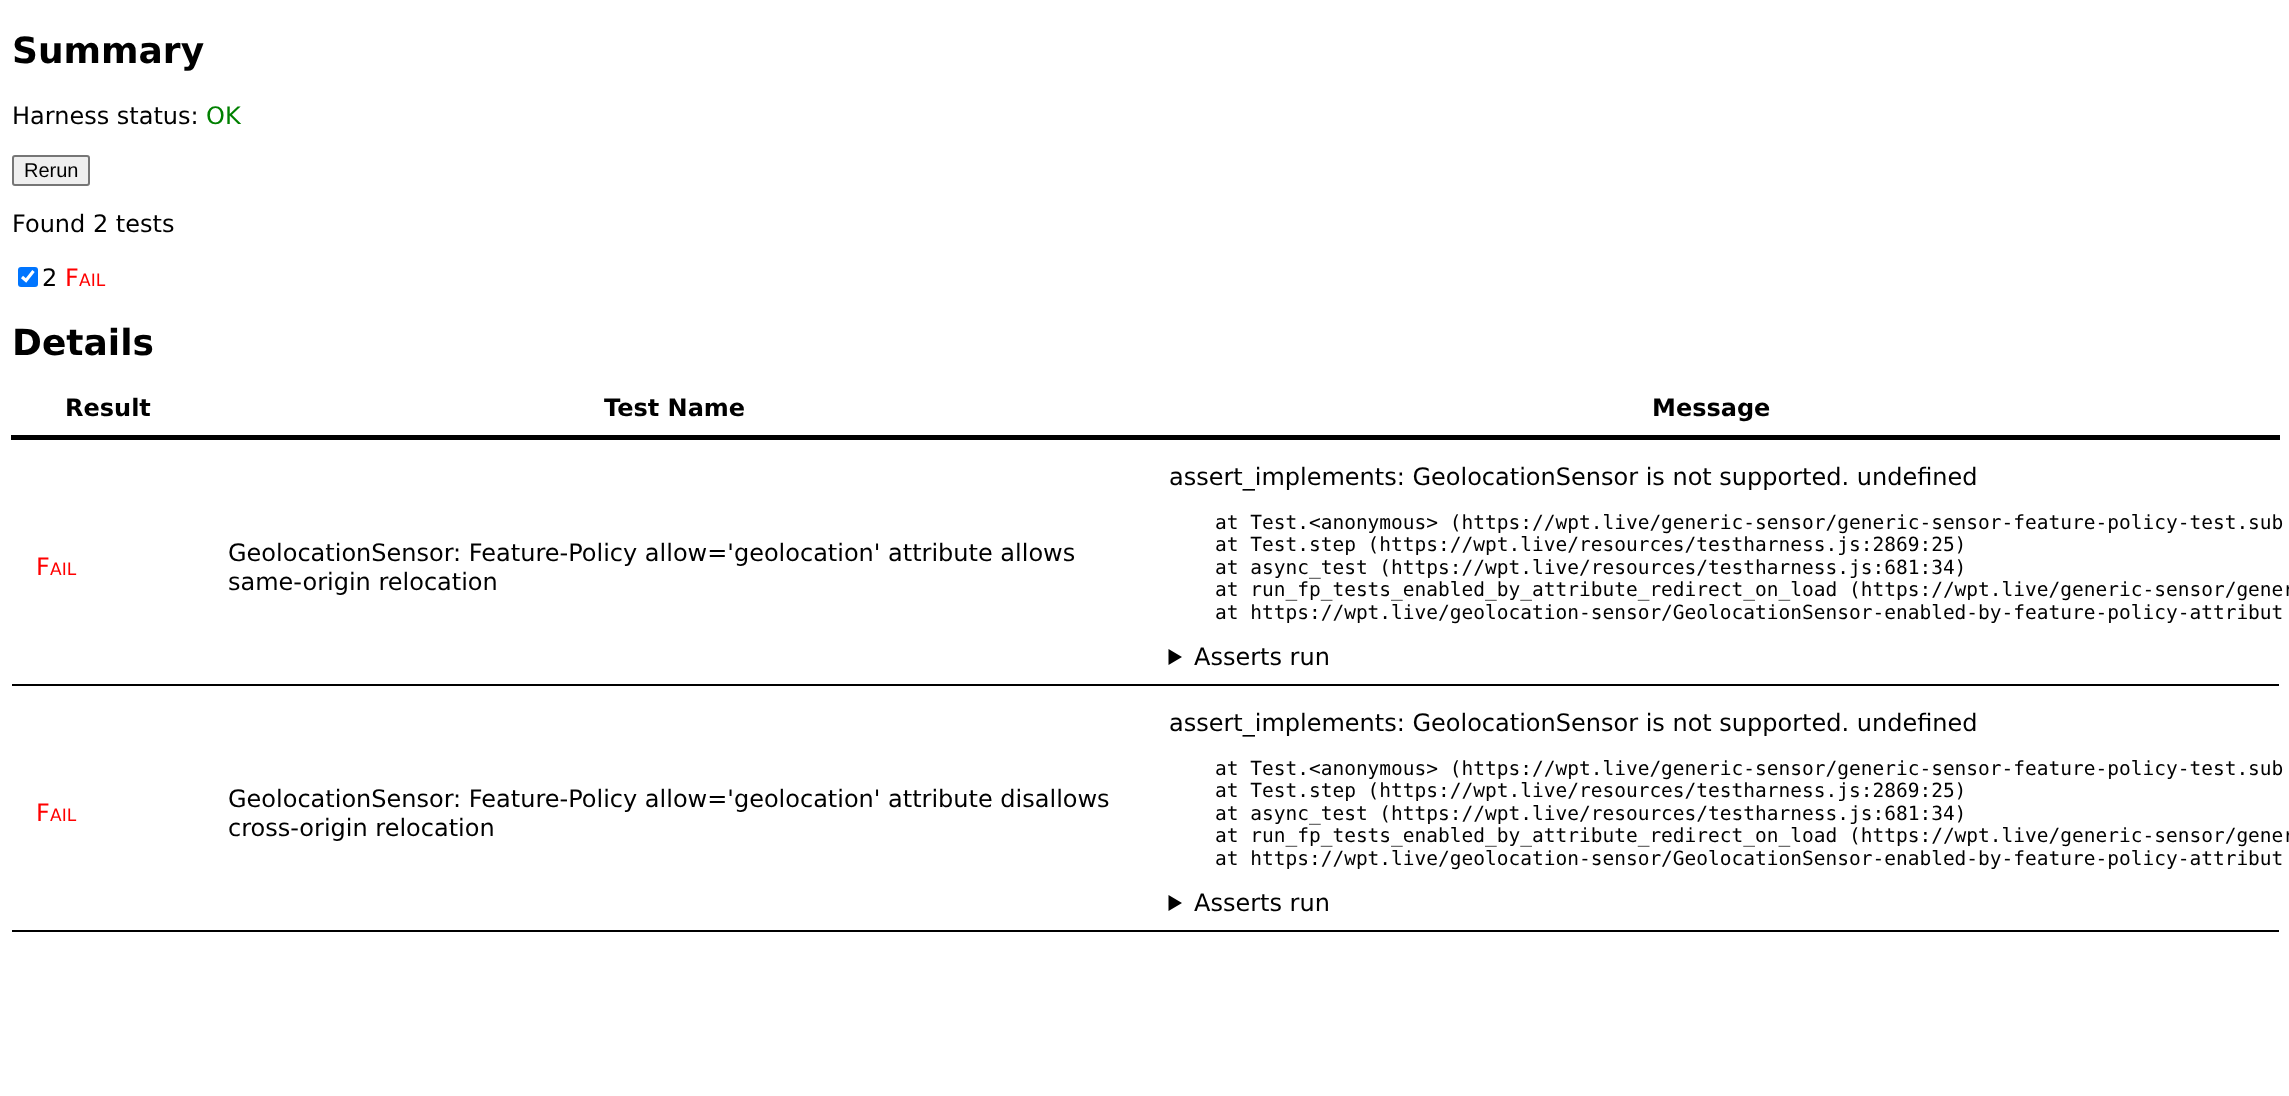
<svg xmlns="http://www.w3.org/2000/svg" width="2289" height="1096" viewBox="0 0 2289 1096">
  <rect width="100%" height="100%" fill="#fff"/>
  <rect x="13" y="156" width="76" height="29" rx="2" fill="#efefef" stroke="#767676" stroke-width="2"/>
  <rect x="18" y="267" width="20" height="20" rx="3" fill="#0075ff"/>
  <path d="M22 277L26 280.5L33.5 271" fill="none" stroke="#fff" stroke-width="3.1"/>
  <path d="M11 435h2269v5H11z" fill="#000"/>
  <path d="M12 684h2267v2H12z" fill="#000"/>
  <path d="M1168.5 649L1182 657L1168.5 665Z" fill="#000"/>
  <path d="M12 930h2267v2H12z" fill="#000"/>
  <path d="M1168.5 895L1182 903L1168.5 911Z" fill="#000"/>
  <text x="12" y="63" font-family="DejaVu Sans" font-size="36" font-weight="bold" fill="#000">Summary</text>
  <text x="12" y="124" font-family="DejaVu Sans" font-size="24" fill="#000">Harness status:</text>
  <text x="206" y="124" font-family="DejaVu Sans" font-size="24" fill="#008000">OK</text>
  <text x="24" y="177" font-family="Liberation Sans" font-size="20" fill="#000">Rerun</text>
  <g font-family="DejaVu Sans" font-size="24" fill="#000">
    <text x="12" y="232">Found 2 tests</text>
    <text x="42" y="286">2</text>
  </g>
  <text x="65" y="286" font-family="DejaVu Sans" font-size="24" fill="#f00">F</text>
  <text x="79" y="286" font-family="DejaVu Sans" font-size="17" fill="#f00">AIL</text>
  <text x="12" y="355" font-family="DejaVu Sans" font-size="36" font-weight="bold" fill="#000">Details</text>
  <g font-family="DejaVu Sans" font-size="24" font-weight="bold" fill="#000">
    <text x="65" y="416">Result</text>
    <text x="604" y="416">Test Name</text>
    <text x="1652" y="416">Message</text>
  </g>
  <text x="36" y="575" font-family="DejaVu Sans" font-size="24" fill="#f00">F</text>
  <text x="50" y="575" font-family="DejaVu Sans" font-size="17" fill="#f00">AIL</text>
  <g font-family="DejaVu Sans" font-size="24" fill="#000">
    <text x="228" y="561">GeolocationSensor: Feature-Policy allow='geolocation' attribute allows</text>
    <text x="228" y="590">same-origin relocation</text>
    <text x="1169" y="485">assert_implements: GeolocationSensor is not supported. undefined</text>
  </g>
  <g font-family="DejaVu Sans Mono" font-size="19.5" fill="#000">
    <text x="1215" y="529">at Test.&lt;anonymous&gt; (https://wpt.live/generic-sensor/generic-sensor-feature-policy-test.sub</text>
    <text x="1215" y="551">at Test.step (https://wpt.live/resources/testharness.js:2869:25)</text>
    <text x="1215" y="574">at async_test (https://wpt.live/resources/testharness.js:681:34)</text>
    <text x="1215" y="596">at run_fp_tests_enabled_by_attribute_redirect_on_load (https://wpt.live/generic-sensor/gener</text>
    <text x="1215" y="619">at https://wpt.live/geolocation-sensor/GeolocationSensor-enabled-by-feature-policy-attribut</text>
  </g>
  <text x="1194" y="665" font-family="DejaVu Sans" font-size="24" fill="#000">Asserts run</text>
  <text x="36" y="821" font-family="DejaVu Sans" font-size="24" fill="#f00">F</text>
  <text x="50" y="821" font-family="DejaVu Sans" font-size="17" fill="#f00">AIL</text>
  <g font-family="DejaVu Sans" font-size="24" fill="#000">
    <text x="228" y="807">GeolocationSensor: Feature-Policy allow='geolocation' attribute disallows</text>
    <text x="228" y="836">cross-origin relocation</text>
    <text x="1169" y="731">assert_implements: GeolocationSensor is not supported. undefined</text>
  </g>
  <g font-family="DejaVu Sans Mono" font-size="19.5" fill="#000">
    <text x="1215" y="775">at Test.&lt;anonymous&gt; (https://wpt.live/generic-sensor/generic-sensor-feature-policy-test.sub</text>
    <text x="1215" y="797">at Test.step (https://wpt.live/resources/testharness.js:2869:25)</text>
    <text x="1215" y="820">at async_test (https://wpt.live/resources/testharness.js:681:34)</text>
    <text x="1215" y="842">at run_fp_tests_enabled_by_attribute_redirect_on_load (https://wpt.live/generic-sensor/gener</text>
    <text x="1215" y="865">at https://wpt.live/geolocation-sensor/GeolocationSensor-enabled-by-feature-policy-attribut</text>
  </g>
  <text x="1194" y="911" font-family="DejaVu Sans" font-size="24" fill="#000">Asserts run</text>
</svg>
